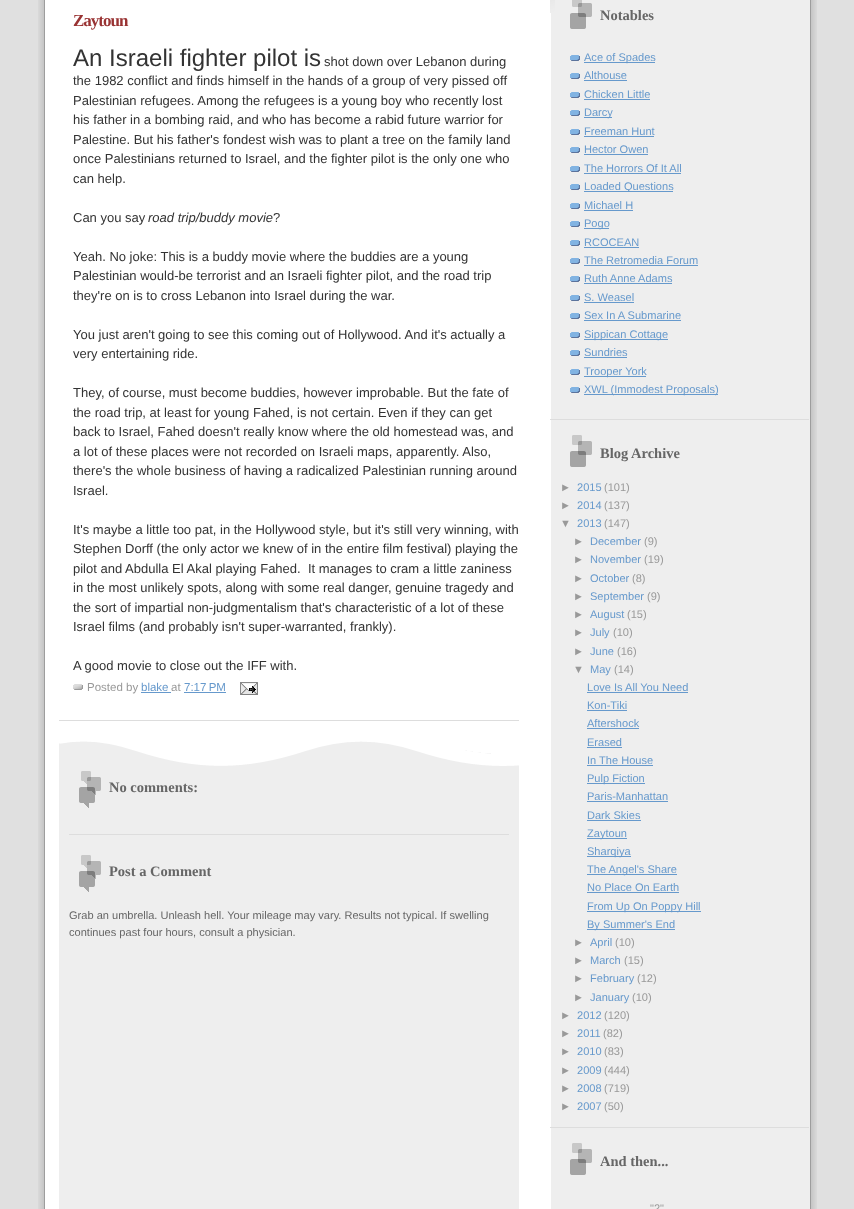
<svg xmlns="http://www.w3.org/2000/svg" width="854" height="1209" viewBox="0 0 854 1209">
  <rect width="100%" height="100%" fill="#e0e0e0"/>
  <image x="38" y="0" width="779" height="1209" href="img/1.png"/>
  <path d="M59 720h460v1H59z" fill="#ddd"/>
  <image x="73" y="684" width="10" height="6" href="img/2.png"/>
  <path d="M141 692h30v1H141z" fill="#69c"/>
  <path d="M184 692h42v1H184z" fill="#69c"/>
  <image x="240" y="682" width="18" height="13" href="img/3.png"/>
  <path d="M59 742h460v467H59z" fill="#eee"/>
  <image x="59" y="741" width="460" height="25" href="img/4.png"/>
  <image x="79" y="771" width="22" height="37" href="img/5.png"/>
  <path d="M69 834h440v1H69z" fill="#ddd"/>
  <image x="79" y="855" width="22" height="37" href="img/5.png"/>
  <image x="550" y="0" width="5" height="13" href="img/6.png"/>
  <path d="M550 419h259v1H550z" fill="#ddd"/>
  <image x="570" y="0" width="22" height="29" href="img/7.png"/>
  <image x="570" y="55" width="10" height="6" href="img/8.png"/>
  <path d="M584 62h71v1H584z" fill="#69c"/>
  <image x="570" y="73" width="10" height="6" href="img/8.png"/>
  <path d="M584 80h43v1H584z" fill="#69c"/>
  <image x="570" y="92" width="10" height="6" href="img/8.png"/>
  <path d="M584 99h66v1H584z" fill="#69c"/>
  <image x="570" y="110" width="10" height="6" href="img/8.png"/>
  <path d="M584 117h28v1H584z" fill="#69c"/>
  <image x="570" y="129" width="10" height="6" href="img/8.png"/>
  <path d="M584 136h70v1H584z" fill="#69c"/>
  <image x="570" y="147" width="10" height="6" href="img/8.png"/>
  <path d="M584 154h64v1H584z" fill="#69c"/>
  <image x="570" y="166" width="10" height="6" href="img/8.png"/>
  <path d="M584 173h97v1H584z" fill="#69c"/>
  <image x="570" y="184" width="10" height="6" href="img/8.png"/>
  <path d="M584 191h89v1H584z" fill="#69c"/>
  <image x="570" y="203" width="10" height="6" href="img/8.png"/>
  <path d="M584 210h49v1H584z" fill="#69c"/>
  <image x="570" y="221" width="10" height="6" href="img/8.png"/>
  <path d="M584 228h25v1H584z" fill="#69c"/>
  <image x="570" y="240" width="10" height="6" href="img/8.png"/>
  <path d="M584 247h55v1H584z" fill="#69c"/>
  <image x="570" y="258" width="10" height="6" href="img/8.png"/>
  <path d="M584 265h114v1H584z" fill="#69c"/>
  <image x="570" y="276" width="10" height="6" href="img/8.png"/>
  <path d="M584 283h88v1H584z" fill="#69c"/>
  <image x="570" y="295" width="10" height="6" href="img/8.png"/>
  <path d="M584 302h50v1H584z" fill="#69c"/>
  <image x="570" y="313" width="10" height="6" href="img/8.png"/>
  <path d="M584 320h97v1H584z" fill="#69c"/>
  <image x="570" y="332" width="10" height="6" href="img/8.png"/>
  <path d="M584 339h84v1H584z" fill="#69c"/>
  <image x="570" y="350" width="10" height="6" href="img/8.png"/>
  <path d="M584 357h43v1H584z" fill="#69c"/>
  <image x="570" y="369" width="10" height="6" href="img/8.png"/>
  <path d="M584 376h62v1H584z" fill="#69c"/>
  <image x="570" y="387" width="10" height="6" href="img/8.png"/>
  <path d="M584 394h134v1H584z" fill="#69c"/>
  <path d="M550 1127h259v1H550z" fill="#ddd"/>
  <image x="570" y="435" width="22" height="32" href="img/9.png"/>
  <path d="M587 692h101v1H587z" fill="#69c"/>
  <path d="M587 710h40v1H587z" fill="#69c"/>
  <path d="M587 728h52v1H587z" fill="#69c"/>
  <path d="M587 747h35v1H587z" fill="#69c"/>
  <path d="M587 765h66v1H587z" fill="#69c"/>
  <path d="M587 783h58v1H587z" fill="#69c"/>
  <path d="M587 801h81v1H587z" fill="#69c"/>
  <path d="M587 820h54v1H587z" fill="#69c"/>
  <path d="M587 838h40v1H587z" fill="#69c"/>
  <path d="M587 856h44v1H587z" fill="#69c"/>
  <path d="M587 874h90v1H587z" fill="#69c"/>
  <path d="M587 892h92v1H587z" fill="#69c"/>
  <path d="M587 911h114v1H587z" fill="#69c"/>
  <path d="M587 929h88v1H587z" fill="#69c"/>
  <image x="570" y="1143" width="22" height="32" href="img/9.png"/>
  <text x="73" y="26" font-family="Liberation Serif" font-size="17" font-weight="bold" letter-spacing="-1" fill="#933">Zaytoun</text>
  <text x="73" y="66" font-family="Liberation Sans" font-size="24" fill="#333">An Israeli fighter pilot is</text>
  <g font-family="Liberation Sans" font-size="13" fill="#333">
    <text x="324" y="66">shot down over Lebanon during</text>
    <text x="73" y="85">the 1982 conflict and finds himself in the hands of a group of very pissed off</text>
    <text x="73" y="105">Palestinian refugees. Among the refugees is a young boy who recently lost</text>
    <text x="73" y="124">his father in a bombing raid, and who has become a rabid future warrior for</text>
    <text x="73" y="144">Palestine. But his father's fondest wish was to plant a tree on the family land</text>
    <text x="73" y="163">once Palestinians returned to Israel, and the fighter pilot is the only one who</text>
    <text x="73" y="183">can help.</text>
    <text x="73" y="222">Can you say</text>
  </g>
  <text x="148" y="222" font-family="Liberation Sans" font-size="13" font-style="italic" fill="#333">road trip/buddy movie</text>
  <g font-family="Liberation Sans" font-size="13" fill="#333">
    <text x="273" y="222">?</text>
    <text x="73" y="261">Yeah. No joke: This is a buddy movie where the buddies are a young</text>
    <text x="73" y="280">Palestinian would-be terrorist and an Israeli fighter pilot, and the road trip</text>
    <text x="73" y="300">they're on is to cross Lebanon into Israel during the war.</text>
    <text x="73" y="339">You just aren't going to see this coming out of Hollywood. And it's actually a</text>
    <text x="73" y="358">very entertaining ride.</text>
    <text x="73" y="397">They, of course, must become buddies, however improbable. But the fate of</text>
    <text x="73" y="417">the road trip, at least for young Fahed, is not certain. Even if they can get</text>
    <text x="73" y="436">back to Israel, Fahed doesn't really know where the old homestead was, and</text>
    <text x="73" y="456">a lot of these places were not recorded on Israeli maps, apparently. Also,</text>
    <text x="73" y="475">there's the whole business of having a radicalized Palestinian running around</text>
    <text x="73" y="495">Israel.</text>
    <text x="73" y="534">It's maybe a little too pat, in the Hollywood style, but it's still very winning, with</text>
    <text x="73" y="553">Stephen Dorff (the only actor we knew of in the entire film festival) playing the</text>
    <text x="73" y="573" xml:space="preserve">pilot and Abdulla El Akal playing Fahed.  It manages to cram a little zaniness</text>
    <text x="73" y="592">in the most unlikely spots, along with some real danger, genuine tragedy and</text>
    <text x="73" y="612">the sort of impartial non-judgmentalism that's characteristic of a lot of these</text>
    <text x="73" y="631">Israel films (and probably isn't super-warranted, frankly).</text>
    <text x="73" y="670">A good movie to close out the IFF with.</text>
  </g>
  <text x="87" y="691" font-family="Liberation Sans" font-size="11.5" fill="#999">Posted by</text>
  <text x="141" y="691" font-family="Liberation Sans" font-size="11.5" fill="#69c">blake</text>
  <text x="171" y="691" font-family="Liberation Sans" font-size="11.5" fill="#999">at</text>
  <text x="184" y="691" font-family="Liberation Sans" font-size="11.5" fill="#69c">7:17 PM</text>
  <g font-family="Liberation Serif" font-size="14.5" font-weight="bold" fill="#666">
    <text x="109" y="792">No comments:</text>
    <text x="109" y="876">Post a Comment</text>
  </g>
  <g font-family="Liberation Sans" font-size="11.05" fill="#666">
    <text x="69" y="919">Grab an umbrella. Unleash hell. Your mileage may vary. Results not typical. If swelling</text>
    <text x="69" y="936">continues past four hours, consult a physician.</text>
  </g>
  <text x="600" y="20" font-family="Liberation Serif" font-size="14.5" font-weight="bold" fill="#666">Notables</text>
  <g font-family="Liberation Sans" font-size="11.05" fill="#69c">
    <text x="584" y="61">Ace of Spades</text>
    <text x="584" y="79">Althouse</text>
    <text x="584" y="98">Chicken Little</text>
    <text x="584" y="116">Darcy</text>
    <text x="584" y="135">Freeman Hunt</text>
    <text x="584" y="153">Hector Owen</text>
    <text x="584" y="172">The Horrors Of It All</text>
    <text x="584" y="190">Loaded Questions</text>
    <text x="584" y="209">Michael H</text>
    <text x="584" y="227">Pogo</text>
    <text x="584" y="246">RCOCEAN</text>
    <text x="584" y="264">The Retromedia Forum</text>
    <text x="584" y="282">Ruth Anne Adams</text>
    <text x="584" y="301">S. Weasel</text>
    <text x="584" y="319">Sex In A Submarine</text>
    <text x="584" y="338">Sippican Cottage</text>
    <text x="584" y="356">Sundries</text>
    <text x="584" y="375">Trooper York</text>
    <text x="584" y="393">XWL (Immodest Proposals)</text>
  </g>
  <text x="600" y="458" font-family="Liberation Serif" font-size="14.5" font-weight="bold" fill="#666">Blog Archive</text>
  <text x="560" y="491" font-family="Liberation Sans" font-size="11.05" fill="#999">►</text>
  <text x="577" y="491" font-family="Liberation Sans" font-size="11.05" fill="#69c">2015</text>
  <g font-family="Liberation Sans" font-size="11.05" fill="#999">
    <text x="604" y="491">(101)</text>
    <text x="560" y="509">►</text>
  </g>
  <text x="577" y="509" font-family="Liberation Sans" font-size="11.05" fill="#69c">2014</text>
  <g font-family="Liberation Sans" font-size="11.05" fill="#999">
    <text x="604" y="509">(137)</text>
    <text x="560" y="527">▼</text>
  </g>
  <text x="577" y="527" font-family="Liberation Sans" font-size="11.05" fill="#69c">2013</text>
  <g font-family="Liberation Sans" font-size="11.05" fill="#999">
    <text x="604" y="527">(147)</text>
    <text x="573" y="545">►</text>
  </g>
  <text x="590" y="545" font-family="Liberation Sans" font-size="11.05" fill="#69c">December</text>
  <g font-family="Liberation Sans" font-size="11.05" fill="#999">
    <text x="644" y="545">(9)</text>
    <text x="573" y="563">►</text>
  </g>
  <text x="590" y="563" font-family="Liberation Sans" font-size="11.05" fill="#69c">November</text>
  <g font-family="Liberation Sans" font-size="11.05" fill="#999">
    <text x="644" y="563">(19)</text>
    <text x="573" y="582">►</text>
  </g>
  <text x="590" y="582" font-family="Liberation Sans" font-size="11.05" fill="#69c">October</text>
  <g font-family="Liberation Sans" font-size="11.05" fill="#999">
    <text x="632" y="582">(8)</text>
    <text x="573" y="600">►</text>
  </g>
  <text x="590" y="600" font-family="Liberation Sans" font-size="11.05" fill="#69c">September</text>
  <g font-family="Liberation Sans" font-size="11.05" fill="#999">
    <text x="647" y="600">(9)</text>
    <text x="573" y="618">►</text>
  </g>
  <text x="590" y="618" font-family="Liberation Sans" font-size="11.05" fill="#69c">August</text>
  <g font-family="Liberation Sans" font-size="11.05" fill="#999">
    <text x="627" y="618">(15)</text>
    <text x="573" y="636">►</text>
  </g>
  <text x="590" y="636" font-family="Liberation Sans" font-size="11.05" fill="#69c">July</text>
  <g font-family="Liberation Sans" font-size="11.05" fill="#999">
    <text x="613" y="636">(10)</text>
    <text x="573" y="655">►</text>
  </g>
  <text x="590" y="655" font-family="Liberation Sans" font-size="11.05" fill="#69c">June</text>
  <g font-family="Liberation Sans" font-size="11.05" fill="#999">
    <text x="617" y="655">(16)</text>
    <text x="573" y="673">▼</text>
  </g>
  <text x="590" y="673" font-family="Liberation Sans" font-size="11.05" fill="#69c">May</text>
  <text x="614" y="673" font-family="Liberation Sans" font-size="11.05" fill="#999">(14)</text>
  <g font-family="Liberation Sans" font-size="11.05" fill="#69c">
    <text x="587" y="691">Love Is All You Need</text>
    <text x="587" y="709">Kon-Tiki</text>
    <text x="587" y="727">Aftershock</text>
    <text x="587" y="746">Erased</text>
    <text x="587" y="764">In The House</text>
    <text x="587" y="782">Pulp Fiction</text>
    <text x="587" y="800">Paris-Manhattan</text>
    <text x="587" y="819">Dark Skies</text>
    <text x="587" y="837">Zaytoun</text>
    <text x="587" y="855">Sharqiya</text>
    <text x="587" y="873">The Angel's Share</text>
    <text x="587" y="891">No Place On Earth</text>
    <text x="587" y="910">From Up On Poppy Hill</text>
    <text x="587" y="928">By Summer's End</text>
  </g>
  <text x="573" y="946" font-family="Liberation Sans" font-size="11.05" fill="#999">►</text>
  <text x="590" y="946" font-family="Liberation Sans" font-size="11.05" fill="#69c">April</text>
  <g font-family="Liberation Sans" font-size="11.05" fill="#999">
    <text x="615" y="946">(10)</text>
    <text x="573" y="964">►</text>
  </g>
  <text x="590" y="964" font-family="Liberation Sans" font-size="11.05" fill="#69c">March</text>
  <g font-family="Liberation Sans" font-size="11.05" fill="#999">
    <text x="624" y="964">(15)</text>
    <text x="573" y="982">►</text>
  </g>
  <text x="590" y="982" font-family="Liberation Sans" font-size="11.05" fill="#69c">February</text>
  <g font-family="Liberation Sans" font-size="11.05" fill="#999">
    <text x="637" y="982">(12)</text>
    <text x="573" y="1001">►</text>
  </g>
  <text x="590" y="1001" font-family="Liberation Sans" font-size="11.05" fill="#69c">January</text>
  <g font-family="Liberation Sans" font-size="11.05" fill="#999">
    <text x="632" y="1001">(10)</text>
    <text x="560" y="1019">►</text>
  </g>
  <text x="577" y="1019" font-family="Liberation Sans" font-size="11.05" fill="#69c">2012</text>
  <g font-family="Liberation Sans" font-size="11.05" fill="#999">
    <text x="604" y="1019">(120)</text>
    <text x="560" y="1037">►</text>
  </g>
  <text x="577" y="1037" font-family="Liberation Sans" font-size="11.05" fill="#69c">2011</text>
  <g font-family="Liberation Sans" font-size="11.05" fill="#999">
    <text x="603" y="1037">(82)</text>
    <text x="560" y="1055">►</text>
  </g>
  <text x="577" y="1055" font-family="Liberation Sans" font-size="11.05" fill="#69c">2010</text>
  <g font-family="Liberation Sans" font-size="11.05" fill="#999">
    <text x="604" y="1055">(83)</text>
    <text x="560" y="1074">►</text>
  </g>
  <text x="577" y="1074" font-family="Liberation Sans" font-size="11.05" fill="#69c">2009</text>
  <g font-family="Liberation Sans" font-size="11.05" fill="#999">
    <text x="604" y="1074">(444)</text>
    <text x="560" y="1092">►</text>
  </g>
  <text x="577" y="1092" font-family="Liberation Sans" font-size="11.05" fill="#69c">2008</text>
  <g font-family="Liberation Sans" font-size="11.05" fill="#999">
    <text x="604" y="1092">(719)</text>
    <text x="560" y="1110">►</text>
  </g>
  <text x="577" y="1110" font-family="Liberation Sans" font-size="11.05" fill="#69c">2007</text>
  <text x="604" y="1110" font-family="Liberation Sans" font-size="11.05" fill="#999">(50)</text>
  <text x="600" y="1166" font-family="Liberation Serif" font-size="14.5" font-weight="bold" fill="#666">And then...</text>
  <text x="650" y="1212" font-family="Liberation Sans" font-size="11.05" fill="#999">"2"</text>
</svg>
